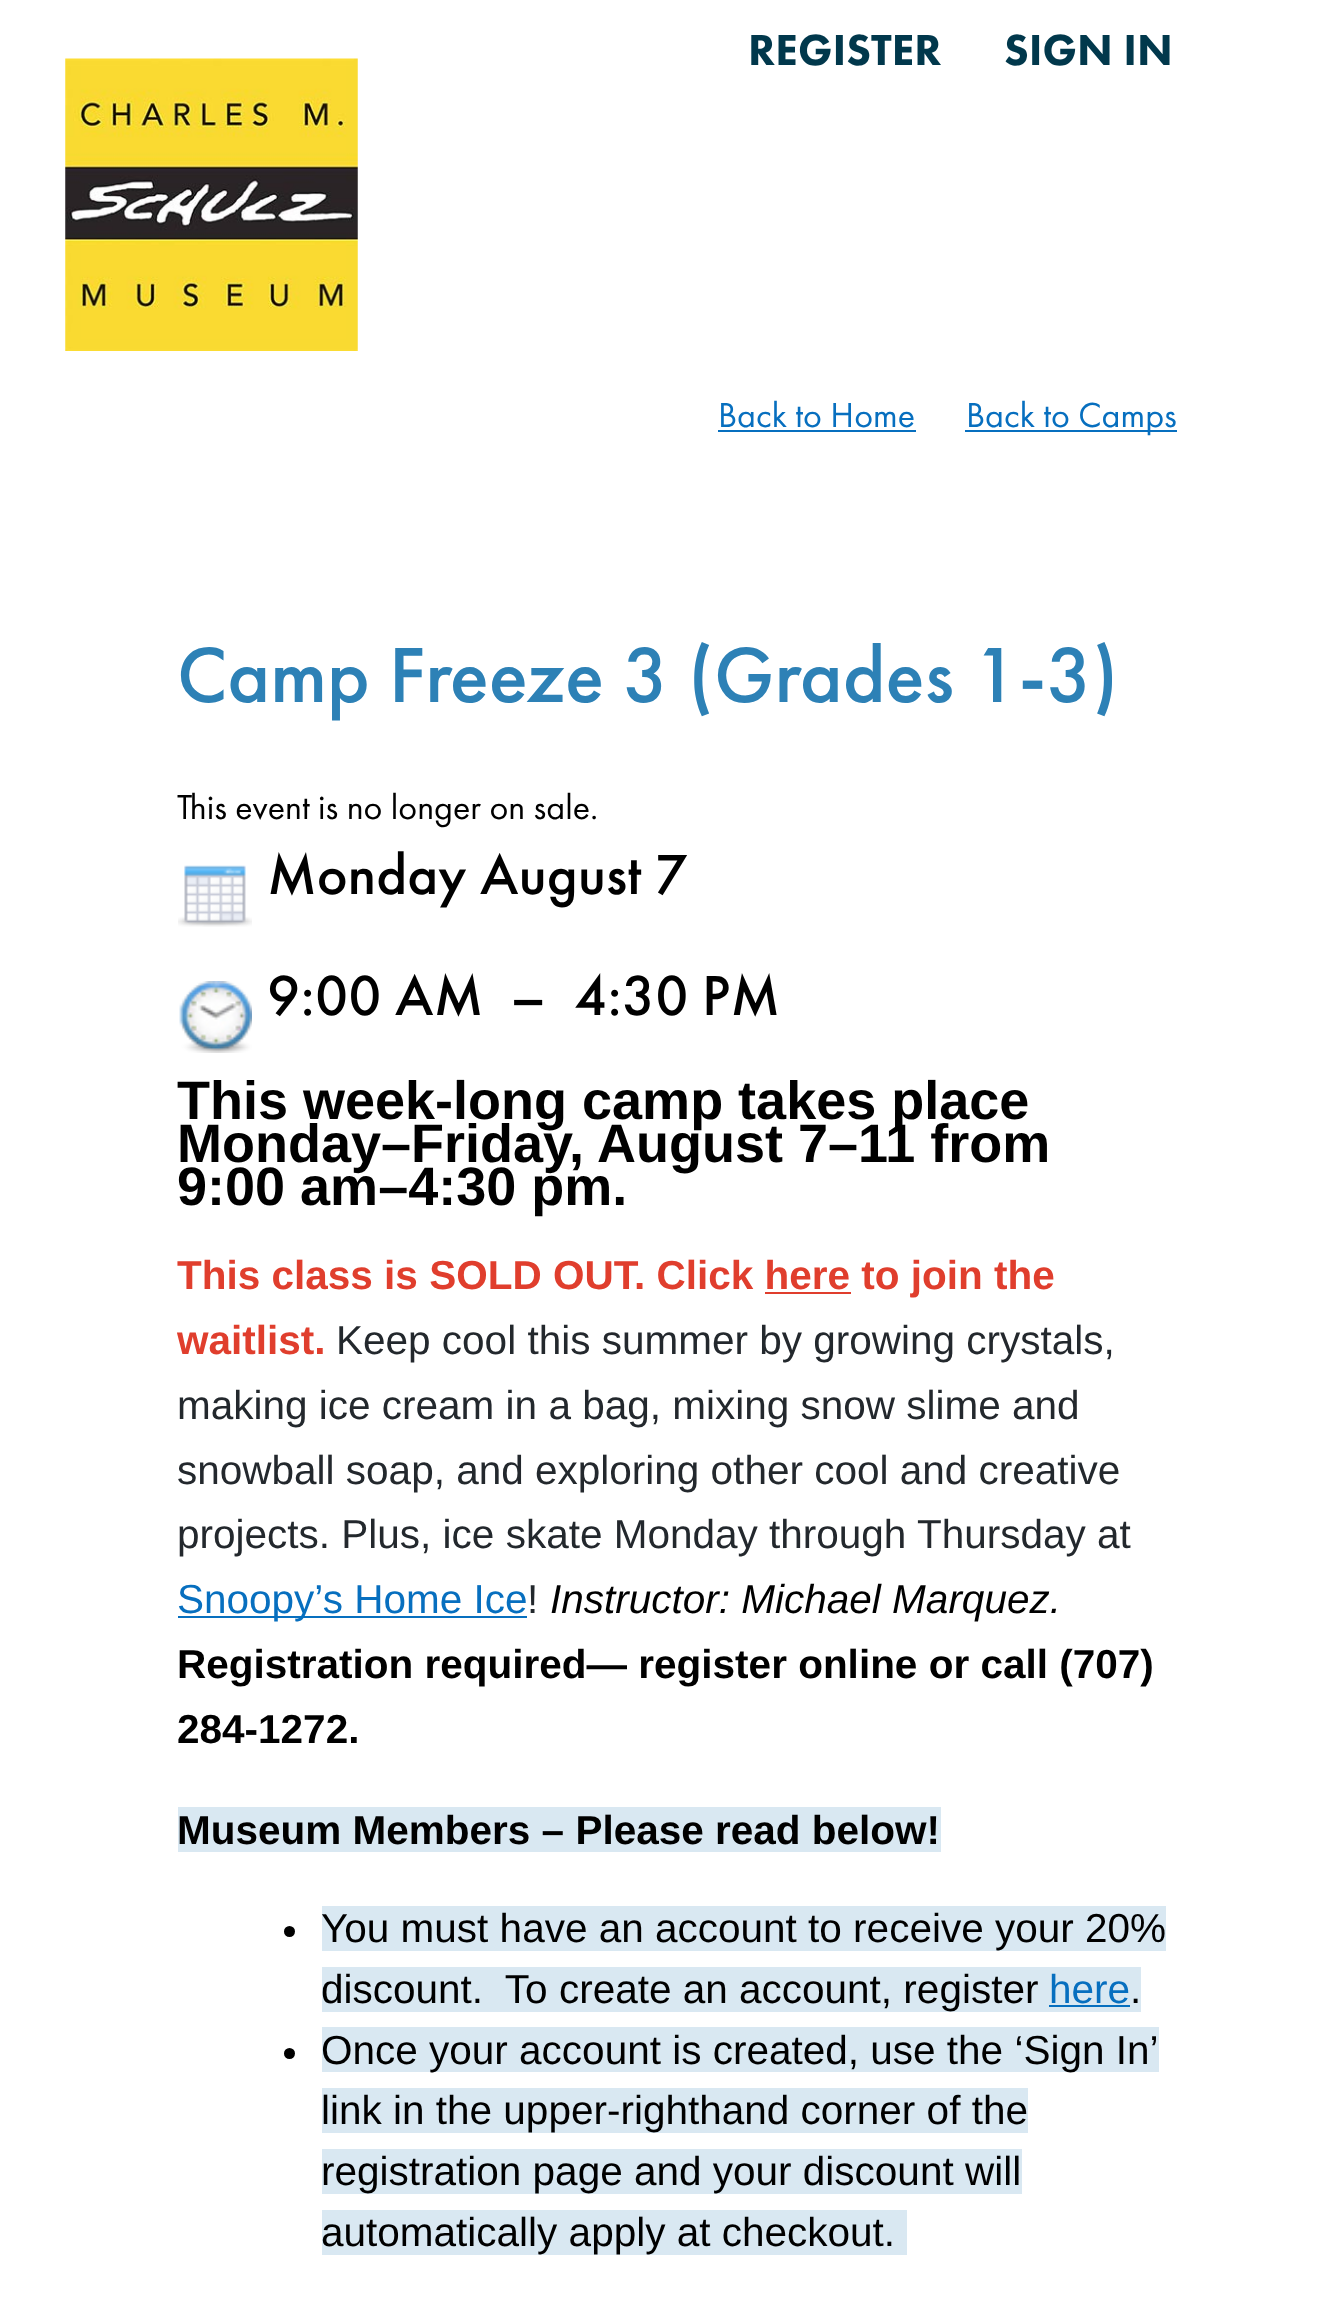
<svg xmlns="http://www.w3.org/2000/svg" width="1342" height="2302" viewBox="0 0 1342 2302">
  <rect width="100%" height="100%" fill="#fff"/>
  <image x="65" y="58" width="293" height="293" href="img/1.png"/>
  <path d="M718 430h198v2H718z" fill="#076fbf"/>
  <path d="M965 430h212v2H965z" fill="#076fbf"/>
  <image x="178" y="865" width="74" height="62" href="img/2.png"/>
  <image x="179" y="981" width="73" height="72" href="img/3.png"/>
  <path d="M765 1292h86v2H765z" fill="#e03e2d"/>
  <path d="M178 1616h349v2H178z" fill="#076fbf"/>
  <path d="M178 1807h763v45H178z" fill="#d9e8f2"/>
  <circle cx="289.5" cy="1931.5" r="5.5" fill="#000"/>
  <path d="M322 1906h844v45H322z" fill="#d9e8f2"/>
  <path d="M322 1967h819v45H322z" fill="#d9e8f2"/>
  <path d="M1049 2005h81v2H1049z" fill="#076fbf"/>
  <circle cx="289.5" cy="2053.5" r="5.5" fill="#000"/>
  <path d="M322 2027h837v45H322z" fill="#d9e8f2"/>
  <path d="M322 2088h706v45H322z" fill="#d9e8f2"/>
  <path d="M322 2149h700v45H322z" fill="#d9e8f2"/>
  <path d="M322 2210h585v45H322z" fill="#d9e8f2"/>
  <g font-family="Futura PT" font-size="45" font-weight="900" fill="#01384c">
    <text x="748" y="65">REGISTER</text>
    <text x="1004" y="65">SIGN IN</text>
  </g>
  <g font-family="Futura PT" font-size="36" fill="#076fbf">
    <text x="718" y="427">Back to Home</text>
    <text x="966" y="427">Back to Camps</text>
  </g>
  <text x="177" y="702" font-family="Futura PT" font-size="81" font-weight="500" fill="#2d81b6">Camp Freeze 3 (Grades 1-3)</text>
  <text x="177" y="819" font-family="Futura PT" font-size="36" fill="#000">This event is no longer on sale.</text>
  <g font-family="Futura PT" font-size="58.5" font-weight="500" fill="#000">
    <text x="267" y="894">Monday August 7</text>
    <text x="267" y="1015">9:00 AM</text>
    <text x="510" y="1015">–</text>
    <text x="574" y="1015">4:30 PM</text>
  </g>
  <g font-family="Liberation Sans" font-size="54" font-weight="bold" fill="#000">
    <text x="177" y="1119">This week-long camp takes place</text>
    <text x="177" y="1162">Monday–Friday, August 7–11 from</text>
    <text x="177" y="1205">9:00 am–4:30 pm.</text>
  </g>
  <g font-family="Liberation Sans" font-size="40.5" font-weight="bold" fill="#e03e2d">
    <text x="177" y="1289">This class is SOLD OUT. Click here to join the</text>
    <text x="177" y="1354">waitlist.</text>
  </g>
  <g font-family="Liberation Sans" font-size="40.5" fill="#23282d">
    <text x="336" y="1354">Keep cool this summer by growing crystals,</text>
    <text x="177" y="1419">making ice cream in a bag, mixing snow slime and</text>
    <text x="177" y="1484">snowball soap, and exploring other cool and creative</text>
    <text x="177" y="1548">projects. Plus, ice skate Monday through Thursday at</text>
  </g>
  <text x="177" y="1613" font-family="Liberation Sans" font-size="40.5" fill="#076fbf">Snoopy’s Home Ice</text>
  <text x="527" y="1613" font-family="Liberation Sans" font-size="40.5" fill="#23282d">!</text>
  <text x="550" y="1613" font-family="Liberation Sans" font-size="40.5" font-style="italic" fill="#000">Instructor: Michael Marquez.</text>
  <g font-family="Liberation Sans" font-size="40.5" font-weight="bold" fill="#000">
    <text x="177" y="1678">Registration required— register online or call (707)</text>
    <text x="177" y="1743">284-1272.</text>
    <text x="177" y="1844">Museum Members – Please read below!</text>
  </g>
  <g font-family="Liberation Sans" font-size="40.5" fill="#000">
    <text x="321" y="1942">You must have an account to receive your 20%</text>
    <text x="321" y="2003" xml:space="preserve">discount.  To create an account, register</text>
  </g>
  <text x="1049" y="2003" font-family="Liberation Sans" font-size="40.5" fill="#076fbf">here</text>
  <g font-family="Liberation Sans" font-size="40.5" fill="#000">
    <text x="1130" y="2003">.</text>
    <text x="321" y="2064">Once your account is created, use the ‘Sign In’</text>
    <text x="321" y="2124">link in the upper-righthand corner of the</text>
    <text x="321" y="2185">registration page and your discount will</text>
    <text x="321" y="2246">automatically apply at checkout.</text>
  </g>
</svg>
